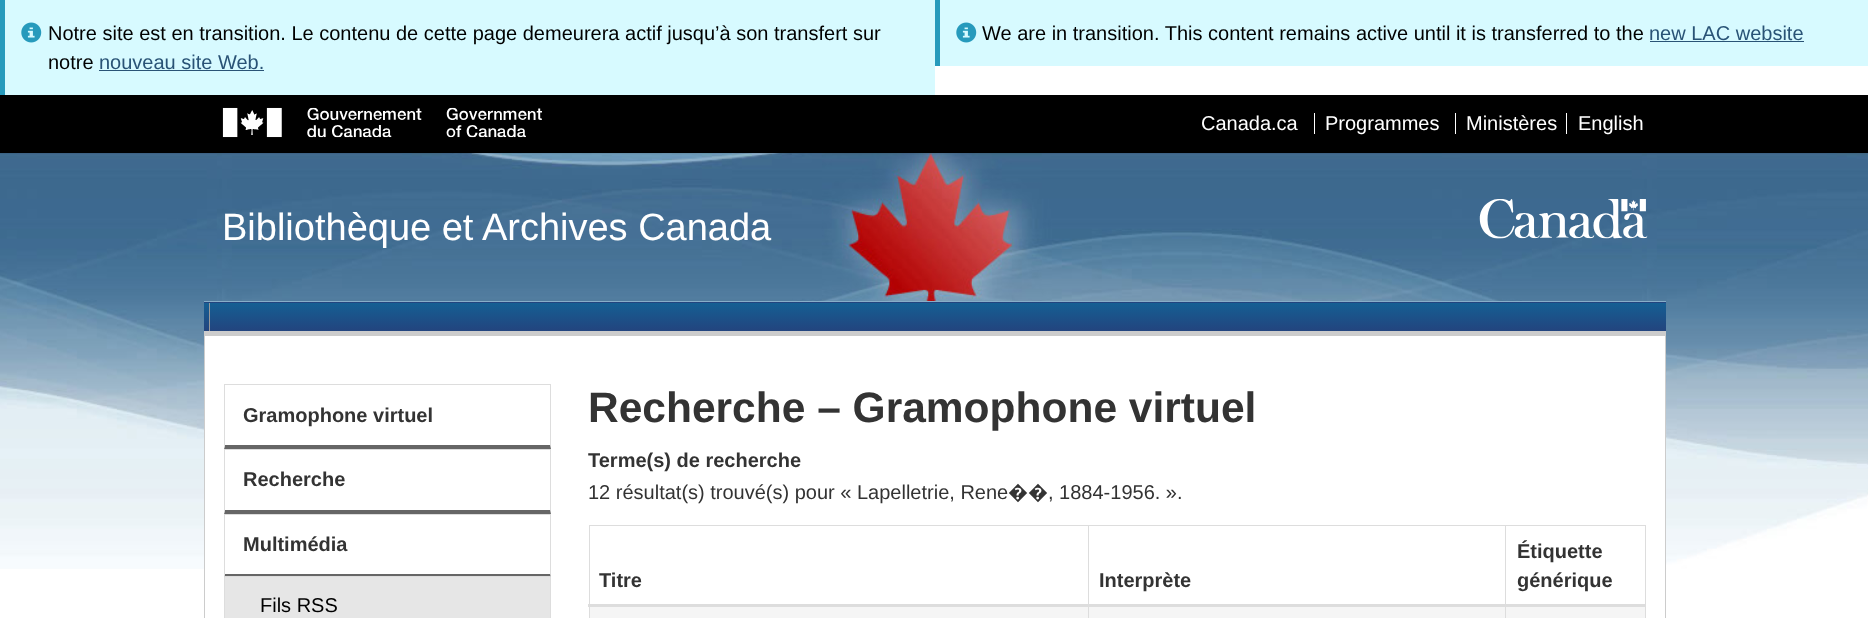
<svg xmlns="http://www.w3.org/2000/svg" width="1868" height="618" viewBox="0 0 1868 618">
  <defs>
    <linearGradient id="g1" gradientUnits="userSpaceOnUse" x1="935" y1="274" x2="935" y2="303"><stop offset="0" stop-color="#146094"/><stop offset="1" stop-color="#23447e"/></linearGradient>
    <linearGradient id="g2" gradientUnits="userSpaceOnUse" x1="935" y1="302" x2="935" y2="331"><stop offset="0" stop-color="#146094"/><stop offset="1" stop-color="#23447e"/></linearGradient>
  </defs>
  <rect width="100%" height="100%" fill="#fff"/>
  <path d="M5 0h930v95H5z" fill="#d7faff"/>
  <path d="M0 0h5v95H0z" fill="#269abc"/>
  <image x="21" y="22" width="21" height="21" href="img/1.png"/>
  <path d="M99 70h165v1H99z" fill="#295376"/>
  <path d="M940 0h928v66H940z" fill="#d7faff"/>
  <path d="M935 0h5v66H935z" fill="#269abc"/>
  <image x="956" y="22" width="21" height="21" href="img/1.png"/>
  <path d="M1650 41h154v1H1650z" fill="#295376"/>
  <image x="0" y="153" width="1868" height="416" href="img/2.png"/>
  <path d="M0 95h1868v58H0z" fill="#000"/>
  <image x="222" y="107" width="320" height="31" href="img/3.png"/>
  <path d="M1314 113h1v21H1314z" fill="#fff"/>
  <path d="M1455 113h1v21H1455z" fill="#fff"/>
  <path d="M1566 113h1v21H1566z" fill="#fff"/>
  <image x="1479" y="199" width="169" height="40" href="img/4.png"/>
  <path d="M204 302h1462v1H204z" fill="url(#g1)"/>
  <path d="M204 303h1462v28H204z" fill="url(#g2)"/>
  <path d="M204 301h1462v1H204z" fill="#87aec9"/>
  <path d="M204 331h1462v5H204z" fill="#ccc"/>
  <path d="M209 303h1v28H209z" fill="#999"/>
  <path d="M205 336h1460v233H205z" fill="#fff"/>
  <path d="M1665 336h1v282H1665z" fill="#ccc"/>
  <path d="M204 336h1v282H204z" fill="#ccc"/>
  <path d="M224 384h327v1H224z" fill="#ddd"/>
  <path d="M551 384V449L550 445V385Z" fill="#ddd"/>
  <path d="M551 449H224L225 445H550Z" fill="#666"/>
  <path d="M224 449V384L225 385V445Z" fill="#ddd"/>
  <path d="M224 449h327v1H224z" fill="#ddd"/>
  <path d="M551 449V514L550 510V450Z" fill="#ddd"/>
  <path d="M551 514H224L225 510H550Z" fill="#666"/>
  <path d="M224 514V449L225 450V510Z" fill="#ddd"/>
  <path d="M224 514h327v1H224z" fill="#ddd"/>
  <path d="M551 514V578L550 574V515Z" fill="#ddd"/>
  <path d="M551 578H224L225 574H550Z" fill="#666"/>
  <path d="M224 578V514L225 515V574Z" fill="#ddd"/>
  <path d="M224.5 576.5h326v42H224.5z" fill="#e6e6e6" stroke="#ddd"/>
  <path d="M589 525h1057v1H589z" fill="#ddd"/>
  <path d="M1645 525h1v93H1645z" fill="#ddd"/>
  <path d="M589 525h1v93H589z" fill="#ddd"/>
  <path d="M590 607h1055v11H590z" fill="#f5f5f5"/>
  <path d="M1088 525h1v93H1088z" fill="#ddd"/>
  <path d="M1505 525h1v93H1505z" fill="#ddd"/>
  <path d="M588 604h1058v3H588z" fill="#ddd"/>
  <g font-family="Liberation Sans" font-size="20" fill="#000">
    <text x="48" y="40">Notre site est en transition. Le contenu de cette page demeurera actif jusqu’à son transfert sur</text>
    <text x="48" y="69">notre</text>
  </g>
  <text x="99" y="69" font-family="Liberation Sans" font-size="20" fill="#295376">nouveau site Web.</text>
  <text x="982" y="40" font-family="Liberation Sans" font-size="20" fill="#000">We are in transition. This content remains active until it is transferred to the</text>
  <text x="1649" y="40" font-family="Liberation Sans" font-size="20" fill="#295376">new LAC website</text>
  <g font-family="Liberation Sans" font-size="20" fill="#fff">
    <text x="1201" y="130">Canada.ca</text>
    <text x="1325" y="130">Programmes</text>
    <text x="1466" y="130">Ministères</text>
    <text x="1578" y="130">English</text>
  </g>
  <text x="222" y="240" font-family="Liberation Sans" font-size="38" fill="#fff">Bibliothèque et Archives Canada</text>
  <g font-family="Liberation Sans" font-size="20" font-weight="bold" fill="#333">
    <text x="243" y="422">Gramophone virtuel</text>
    <text x="243" y="486">Recherche</text>
    <text x="243" y="551">Multimédia</text>
  </g>
  <text x="260" y="612" font-family="Liberation Sans" font-size="20" fill="#000">Fils RSS</text>
  <text x="588" y="422" font-family="Liberation Sans" font-size="42.5" font-weight="bold" fill="#333">Recherche – Gramophone virtuel</text>
  <text x="588" y="467" font-family="Liberation Sans" font-size="20" font-weight="bold" fill="#333">Terme(s) de recherche</text>
  <text x="588" y="499" font-family="Liberation Sans" font-size="20" fill="#333">12 résultat(s) trouvé(s) pour « Lapelletrie, Rene</text>
  <text x="1008" y="499" font-family="Noto Sans" font-size="20" fill="#333">��</text>
  <text x="1048" y="499" font-family="Liberation Sans" font-size="20" fill="#333">, 1884-1956. ».</text>
  <g font-family="Liberation Sans" font-size="20" font-weight="bold" fill="#333">
    <text x="599" y="587">Titre</text>
    <text x="1099" y="587">Interprète</text>
    <text x="1517" y="558">Étiquette</text>
    <text x="1517" y="587">générique</text>
  </g>
</svg>
